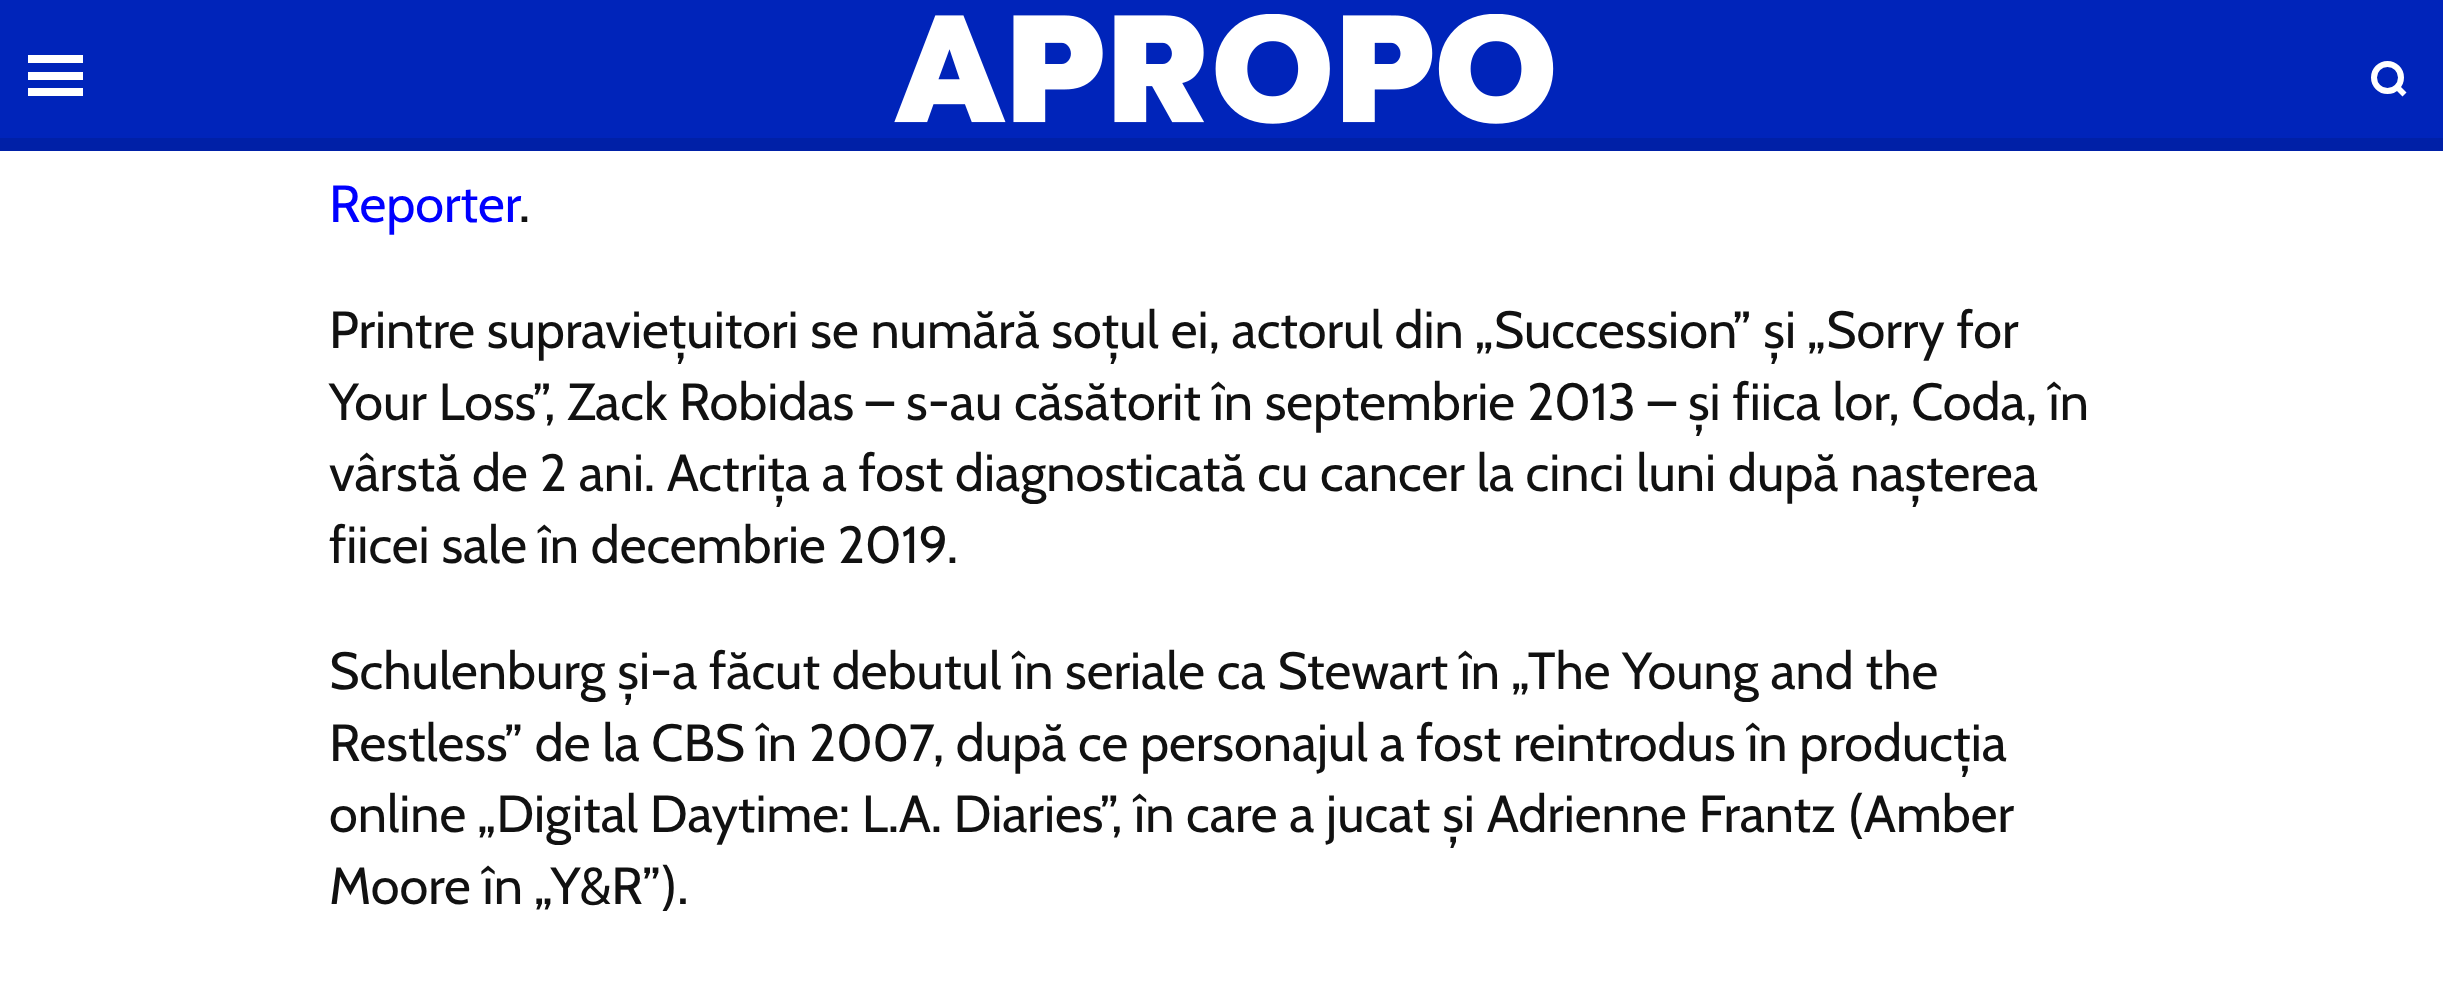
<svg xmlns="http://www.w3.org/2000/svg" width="2443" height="996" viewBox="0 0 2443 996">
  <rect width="100%" height="100%" fill="#fff"/>
  <path d="M0 0h2443v138H0z" fill="#0024ba"/>
  <path d="M28 72h55v8H28z" fill="#fff"/>
  <path d="M28 55h55v8H28z" fill="#fff"/>
  <path d="M28 88h55v8H28z" fill="#fff"/>
  <image x="894" y="14" width="660" height="110" href="img/1.png"/>
  <circle cx="2387.5" cy="77.5" r="13.5" fill="none" stroke="#fff" stroke-width="6"/>
  <path d="M2395 89L2399 85L2406.5 92.5L2402.5 96.5Z" fill="#fff"/>
  <path d="M0 138h2443v13H0z" fill="#0020a7"/>
  <text x="329" y="222" font-family="Cabin" font-size="52.25" fill="#00f">Reporter</text>
  <g font-family="Cabin" font-size="52.25" fill="#111">
    <text x="519" y="222">.</text>
    <text x="329" y="348">Printre supraviețuitori se numără soțul ei, actorul din „Succession” și „Sorry for</text>
    <text x="329" y="420">Your Loss”, Zack Robidas – s-au căsătorit în septembrie 2013 – și fiica lor, Coda, în</text>
    <text x="329" y="491">vârstă de 2 ani. Actrița a fost diagnosticată cu cancer la cinci luni după nașterea</text>
    <text x="329" y="563">fiicei sale în decembrie 2019.</text>
    <text x="329" y="689">Schulenburg și-a făcut debutul în seriale ca Stewart în „The Young and the</text>
    <text x="329" y="761">Restless” de la CBS în 2007, după ce personajul a fost reintrodus în producția</text>
    <text x="329" y="832">online „Digital Daytime: L.A. Diaries”, în care a jucat și Adrienne Frantz (Amber</text>
    <text x="329" y="904">Moore în „Y&amp;R”).</text>
  </g>
</svg>
